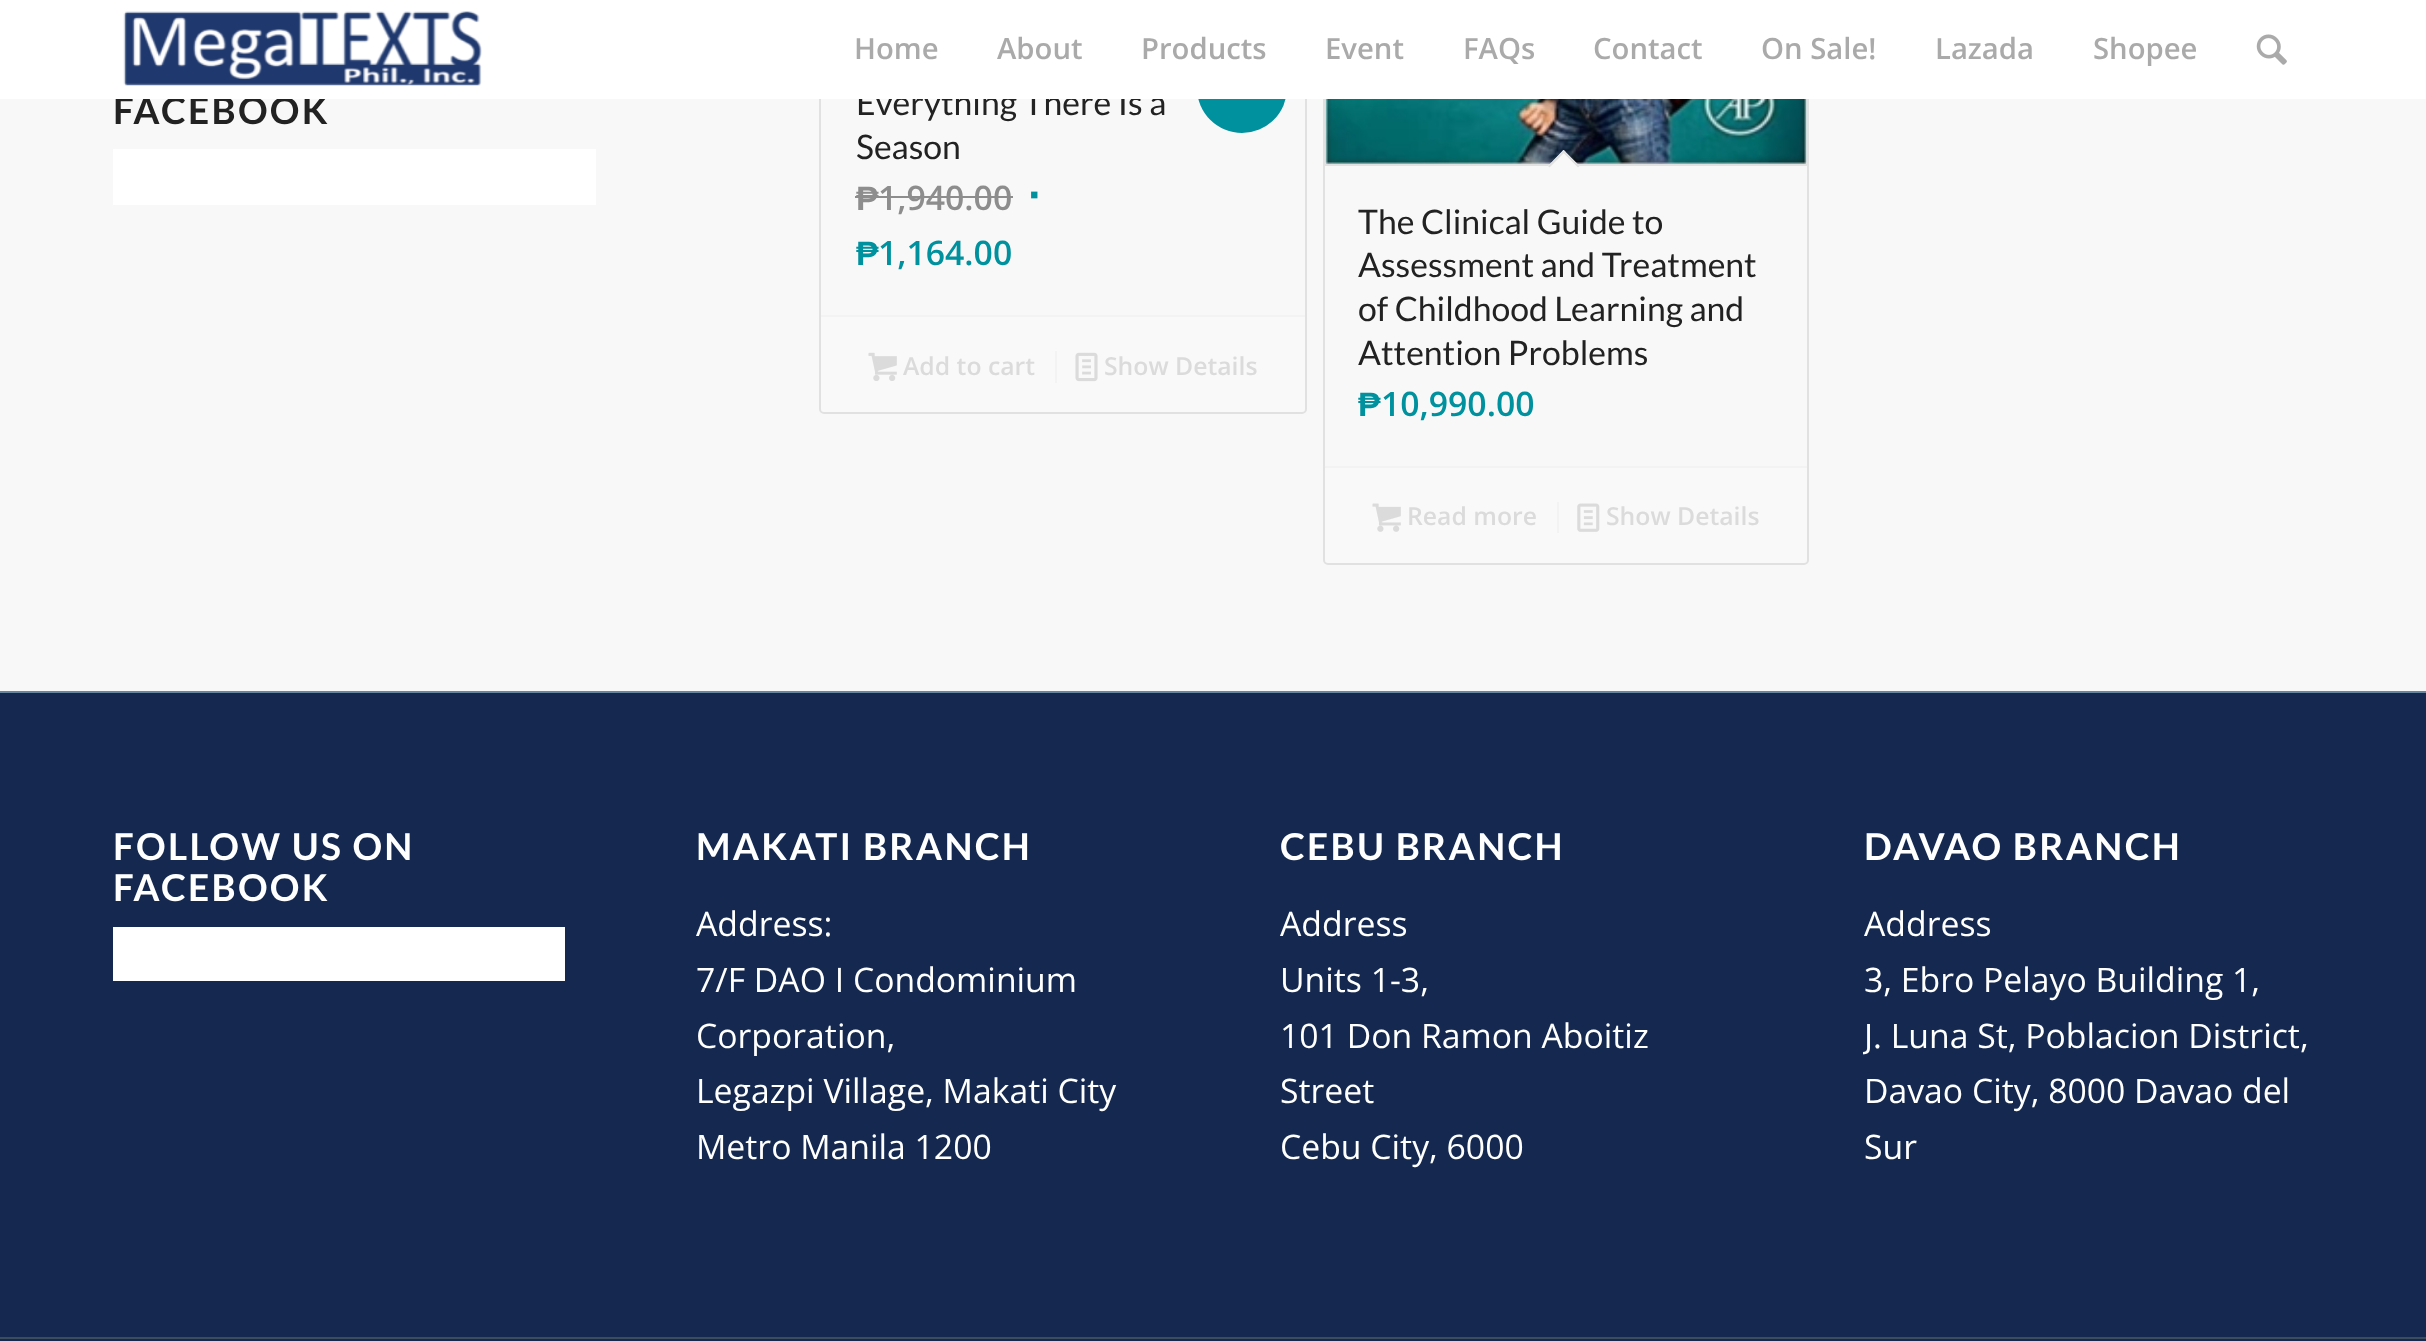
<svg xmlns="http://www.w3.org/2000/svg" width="2426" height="1341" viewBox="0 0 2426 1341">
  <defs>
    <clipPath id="clip1"><path d="M1863 794h452v410H1863z"/></clipPath>
  </defs>
  <rect width="100%" height="100%" fill="#f8f8f8"/>
  <path d="M113 149h483v56H113z" fill="#fff"/>
  <rect x="820" y="-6" width="486" height="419" rx="4" fill="none" stroke="#e1e1e1" stroke-width="2"/>
  <circle cx="1242" cy="88" r="45" fill="#00919e"/>
  <path d="M855 196h23v2H855z" fill="#8d8d8d"/>
  <path d="M878 196h135v2H878z" fill="#8d8d8d"/>
  <path d="M821 315H1305V410C1305 411 1304 412 1303 412H823C822 412 821 411 821 410Z" fill="#ffffff33"/>
  <path d="M821 315h484v2H821z" fill="#f3f3f3"/>
  <image x="868" y="352" width="29" height="29" href="img/3.png"/>
  <path d="M1055 351h2v32H1055z" fill="#f3f3f3"/>
  <image x="1075" y="352" width="23" height="30" href="img/4.png"/>
  <rect x="1324" y="-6" width="484" height="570" rx="4" fill="none" stroke="#e1e1e1" stroke-width="2"/>
  <image x="1325" y="99" width="482" height="65" href="img/5.png"/>
  <path d="M1325 164h482v2H1325z" fill="#e1e1e1"/>
  <path d="M1563.5 150L1579.5 166L1563.5 182L1548 166Z" fill="#f8f8f8"/>
  <path d="M1563.5 150L1579.5 166L1578 167.5L1562 151.5Z" fill="#e1e1e1"/>
  <path d="M1563.5 150L1565.5 151.5L1549.5 167.5L1548 166Z" fill="#e1e1e1"/>
  <path d="M1325 466H1807V561C1807 562 1806 563 1805 563H1327C1326 563 1325 562 1325 561Z" fill="#ffffff33"/>
  <path d="M1325 466h482v2H1325z" fill="#f3f3f3"/>
  <image x="1372" y="503" width="29" height="29" href="img/6.png"/>
  <path d="M1557 502h2v31H1557z" fill="#f3f3f3"/>
  <image x="1577" y="503" width="23" height="29" href="img/7.png"/>
  <path d="M0 693h2426v644H0z" fill="#142850"/>
  <path d="M0 691h2426v2H0z" fill="#6786a1"/>
  <path d="M113 927h452v54H113z" fill="#fff"/>
  <path d="M0 1339h2426v2H0z" fill="#142850"/>
  <path d="M0 1337h2426v2H0z" fill="#3a4d5c"/>
  <text x="113" y="124" font-family="Lato" font-size="37.1" font-weight="bold" letter-spacing="2.25" fill="#222">FACEBOOK</text>
  <text x="856" y="115" font-family="Lato" font-size="33.75" fill="#222">Everything There Is a</text>
  <path d="M0 0h2426v99H0z" fill="#fff"/>
  <image x="2256" y="34" width="31" height="31" href="img/2.png"/>
  <g font-family="Open Sans" font-size="29.25" font-weight="600" fill="#aaa">
    <text x="2093" y="59">Shopee</text>
    <text x="1935" y="59">Lazada</text>
    <text x="1761" y="59">On Sale!</text>
    <text x="1593" y="59">Contact</text>
    <text x="1463" y="59">FAQs</text>
    <text x="1325" y="59">Event</text>
    <text x="1141" y="59">Products</text>
    <text x="997" y="59">About</text>
    <text x="854" y="59">Home</text>
  </g>
  <image x="123" y="11" width="359" height="75" href="img/1.png"/>
  <text x="856" y="159" font-family="Lato" font-size="33.75" fill="#222">Season</text>
  <text x="856" y="210" font-family="Liberation Sans" font-size="33.75" font-weight="bold" fill="#8d8d8d">₱</text>
  <text x="878" y="210" font-family="Open Sans" font-size="33.75" font-weight="600" fill="#8d8d8d">1,940.00</text>
  <text x="1028" y="210" font-family="Liberation Sans" font-size="45" font-weight="bold" fill="#00919e">∙</text>
  <text x="856" y="265" font-family="Liberation Sans" font-size="33.75" font-weight="bold" fill="#00919e">₱</text>
  <text x="878" y="265" font-family="Open Sans" font-size="33.75" font-weight="600" fill="#00919e">1,164.00</text>
  <g font-family="Open Sans" font-size="24.75" font-weight="600" fill="#dbdbdb">
    <text x="903" y="375">Add to cart</text>
    <text x="1104" y="375">Show Details</text>
  </g>
  <g font-family="Lato" font-size="33.75" fill="#222">
    <text x="1358" y="234">The Clinical Guide to</text>
    <text x="1358" y="277">Assessment and Treatment</text>
    <text x="1358" y="321">of Childhood Learning and</text>
    <text x="1358" y="365">Attention Problems</text>
  </g>
  <text x="1358" y="416" font-family="Liberation Sans" font-size="33.75" font-weight="bold" fill="#00919e">₱</text>
  <text x="1381" y="416" font-family="Open Sans" font-size="33.75" font-weight="600" fill="#00919e">10,990.00</text>
  <g font-family="Open Sans" font-size="24.75" font-weight="600" fill="#dbdbdb">
    <text x="1407" y="525">Read more</text>
    <text x="1606" y="525">Show Details</text>
  </g>
  <g font-family="Lato" font-size="37.1" font-weight="bold" letter-spacing="2.25" fill="#fff">
    <text x="113" y="860">FOLLOW US ON</text>
    <text x="113" y="901">FACEBOOK</text>
    <text x="696" y="860">MAKATI BRANCH</text>
  </g>
  <g font-family="Open Sans" font-size="33.75" fill="#fff">
    <text x="696" y="936">Address:</text>
    <text x="696" y="992">7/F DAO I Condominium</text>
    <text x="696" y="1048">Corporation,</text>
    <text x="696" y="1103">Legazpi Village, Makati City</text>
    <text x="696" y="1159">Metro Manila 1200</text>
  </g>
  <text x="1280" y="860" font-family="Lato" font-size="37.1" font-weight="bold" letter-spacing="2.25" fill="#fff">CEBU BRANCH</text>
  <g font-family="Open Sans" font-size="33.75" fill="#fff">
    <text x="1280" y="936">Address</text>
    <text x="1280" y="992">Units 1-3,</text>
    <text x="1280" y="1048">101 Don Ramon Aboitiz</text>
    <text x="1280" y="1103">Street</text>
    <text x="1280" y="1159">Cebu City, 6000</text>
  </g>
  <text x="1864" y="860" font-family="Lato" font-size="37.1" font-weight="bold" letter-spacing="2.25" fill="#fff">DAVAO BRANCH</text>
  <g font-family="Open Sans" font-size="33.75" fill="#fff">
    <text x="1864" y="936">Address</text>
    <text x="1864" y="992">3, Ebro Pelayo Building 1,</text>
  </g>
  <g clip-path="url(#clip1)">
    <text x="1864" y="1048" font-family="Open Sans" font-size="33.75" fill="#fff">J. Luna St, Poblacion District,</text>
  </g>
  <g font-family="Open Sans" font-size="33.75" fill="#fff">
    <text x="1864" y="1103">Davao City, 8000 Davao del</text>
    <text x="1864" y="1159">Sur</text>
  </g>
</svg>
